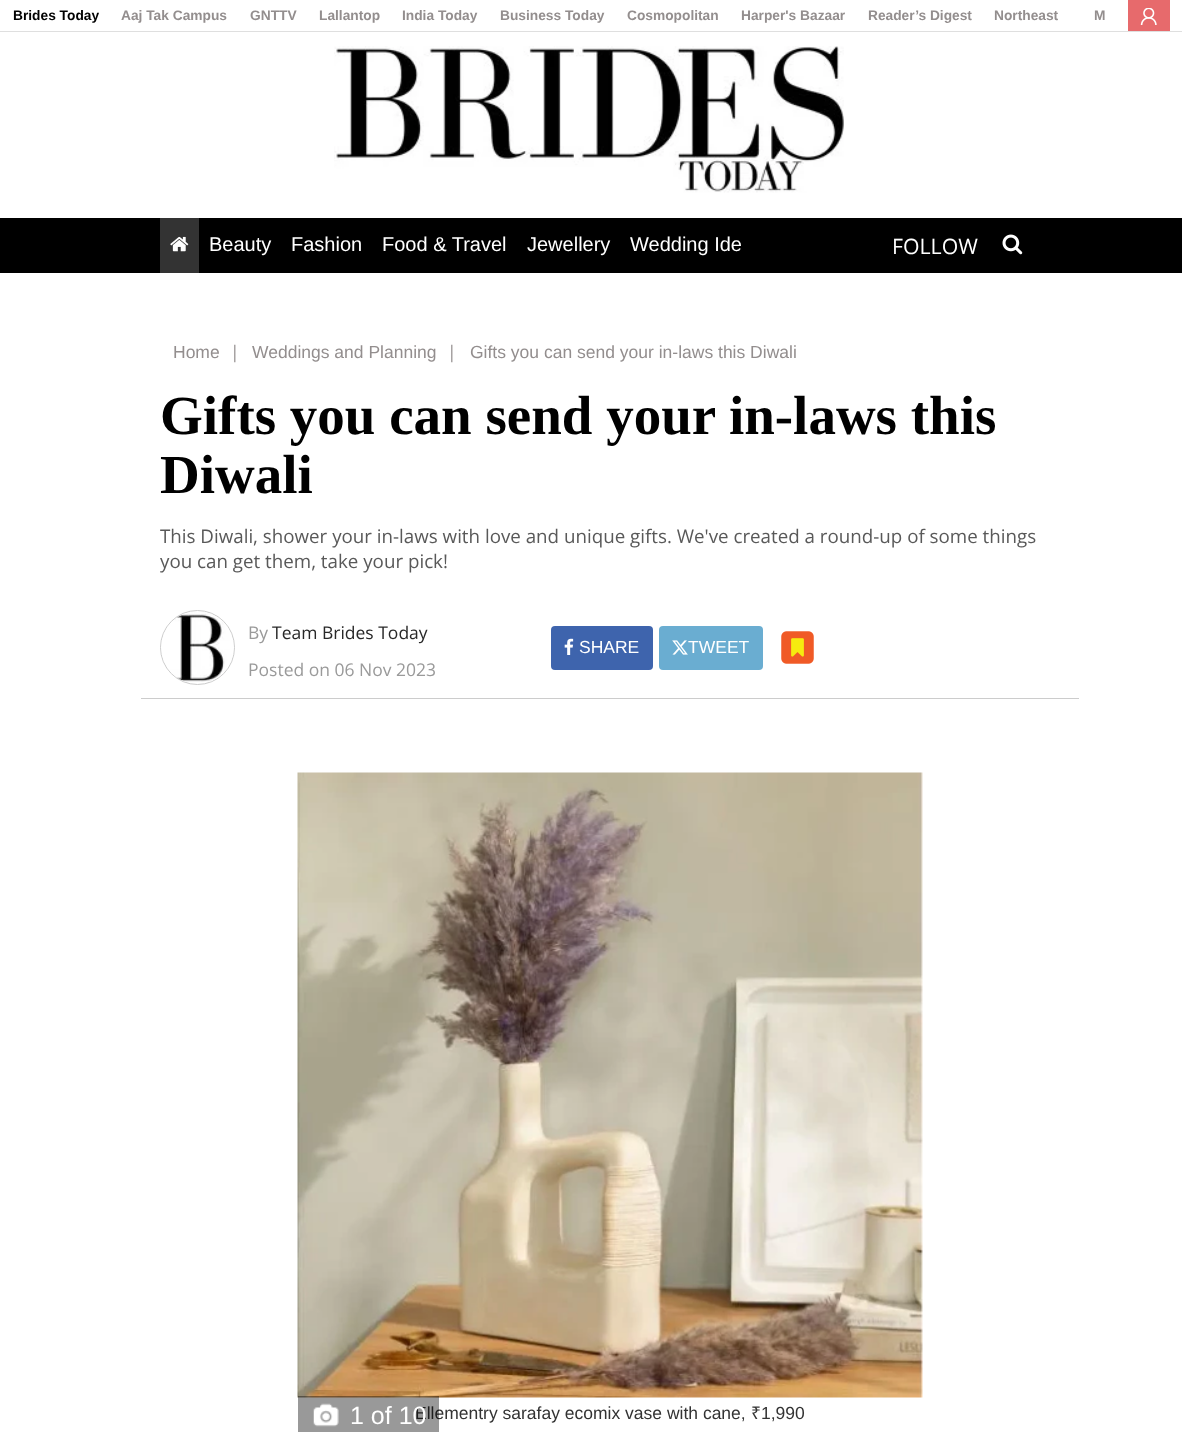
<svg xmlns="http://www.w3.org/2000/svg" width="1182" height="1432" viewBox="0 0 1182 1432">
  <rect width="100%" height="100%" fill="#fff"/>
  <path d="M0 31h1182v1H0z" fill="#dfdfdf"/>
  <path d="M1128 0h42v31H1128z" fill="#e76a6c"/>
  <image x="1140" y="8" width="17" height="17" href="img/1.png"/>
  <image x="334" y="46" width="510" height="147" href="img/2.png"/>
  <path d="M0 218h1182v55H0z" fill="#000"/>
  <path d="M160 218h39v55H160z" fill="#333"/>
  <image x="170" y="236" width="19" height="16" href="img/3.png"/>
  <image x="1002" y="234" width="21" height="21" href="img/4.png"/>
  <path d="M141 698h938v1H141z" fill="#ccc"/>
  <circle cx="197.5" cy="647.5" r="37" fill="none" stroke="#ccc"/>
  <image x="161" y="612" width="73" height="70" href="img/5.png"/>
  <rect x="551" y="626" width="102" height="44" rx="4" fill="#3e64ad"/>
  <image x="564" y="638" width="10" height="17" href="img/6.png"/>
  <rect x="659" y="626" width="104" height="44" rx="4" fill="#6aadd1"/>
  <image x="672" y="640" width="16" height="15" href="img/7.png"/>
  <image x="781" y="631" width="33" height="33" href="img/8.png"/>
  <image x="297" y="772" width="626" height="626" href="img/9.png"/>
  <text x="13" y="20" font-family="Liberation Sans" font-size="13.75" font-weight="bold" fill="#000">Brides Today</text>
  <g font-family="Liberation Sans" font-size="13.75" font-weight="bold" fill="#938e8e">
    <text x="121" y="20">Aaj Tak Campus</text>
    <text x="250" y="20">GNTTV</text>
    <text x="319" y="20">Lallantop</text>
    <text x="402" y="20">India Today</text>
    <text x="500" y="20">Business Today</text>
    <text x="627" y="20">Cosmopolitan</text>
    <text x="741" y="20">Harper's Bazaar</text>
    <text x="868" y="20">Reader’s Digest</text>
    <text x="994" y="20">Northeast</text>
    <text x="1094" y="20">M</text>
  </g>
  <g font-family="Liberation Sans" font-size="20" fill="#fff">
    <text x="209" y="251">Beauty</text>
    <text x="291" y="251">Fashion</text>
    <text x="382" y="251">Food &amp; Travel</text>
    <text x="527" y="251">Jewellery</text>
    <text x="630" y="251">Wedding Ide</text>
  </g>
  <text x="892" y="254" font-family="Open Sans" font-size="21.25" fill="#fff">FOLLOW</text>
  <text x="173" y="358" font-family="Liberation Sans" font-size="17.5" fill="#938e8e">Home</text>
  <text x="230" y="358" font-family="Open Sans" font-size="17.5" fill="#938e8e">|</text>
  <text x="252" y="358" font-family="Liberation Sans" font-size="17.5" fill="#938e8e">Weddings and Planning</text>
  <text x="447" y="358" font-family="Open Sans" font-size="17.5" fill="#938e8e">|</text>
  <text x="470" y="358" font-family="Liberation Sans" font-size="17.5" fill="#938e8e">Gifts you can send your in-laws this Diwali</text>
  <g font-family="Liberation Serif" font-size="55" font-weight="bold" fill="#000">
    <text x="160" y="434">Gifts you can send your in-laws this</text>
    <text x="160" y="493">Diwali</text>
  </g>
  <g font-family="Open Sans" font-size="18.75" fill="#595959">
    <text x="160" y="543">This Diwali, shower your in-laws with love and unique gifts. We've created a round-up of some things</text>
    <text x="160" y="568">you can get them, take your pick!</text>
  </g>
  <text x="248" y="639" font-family="Open Sans" font-size="17.5" fill="#9a9a9a">By</text>
  <text x="272" y="639" font-family="Open Sans" font-size="17.5" fill="#282828">Team Brides Today</text>
  <text x="248" y="676" font-family="Open Sans" font-size="17.5" fill="#9a9a9a">Posted on 06 Nov 2023</text>
  <g font-family="Liberation Sans" font-size="17.5" fill="#fff">
    <text x="579" y="653">SHARE</text>
    <text x="688" y="653">TWEET</text>
  </g>
  <text x="415" y="1419" font-family="Liberation Sans" font-size="17.5" fill="#333">Ellementry sarafay ecomix vase with cane,</text>
  <path d="M298 1396h141v36H298z" fill="#00000066"/>
  <image x="313" y="1403" width="26" height="24" href="img/10.png"/>
  <text x="350" y="1424" font-family="Liberation Sans" font-size="25" fill="#fff">1 of 10</text>
  <text x="751" y="1419" font-family="Noto Sans" font-size="17.5" fill="#333">₹</text>
  <text x="761" y="1419" font-family="Liberation Sans" font-size="17.5" fill="#333">1,990</text>
</svg>
